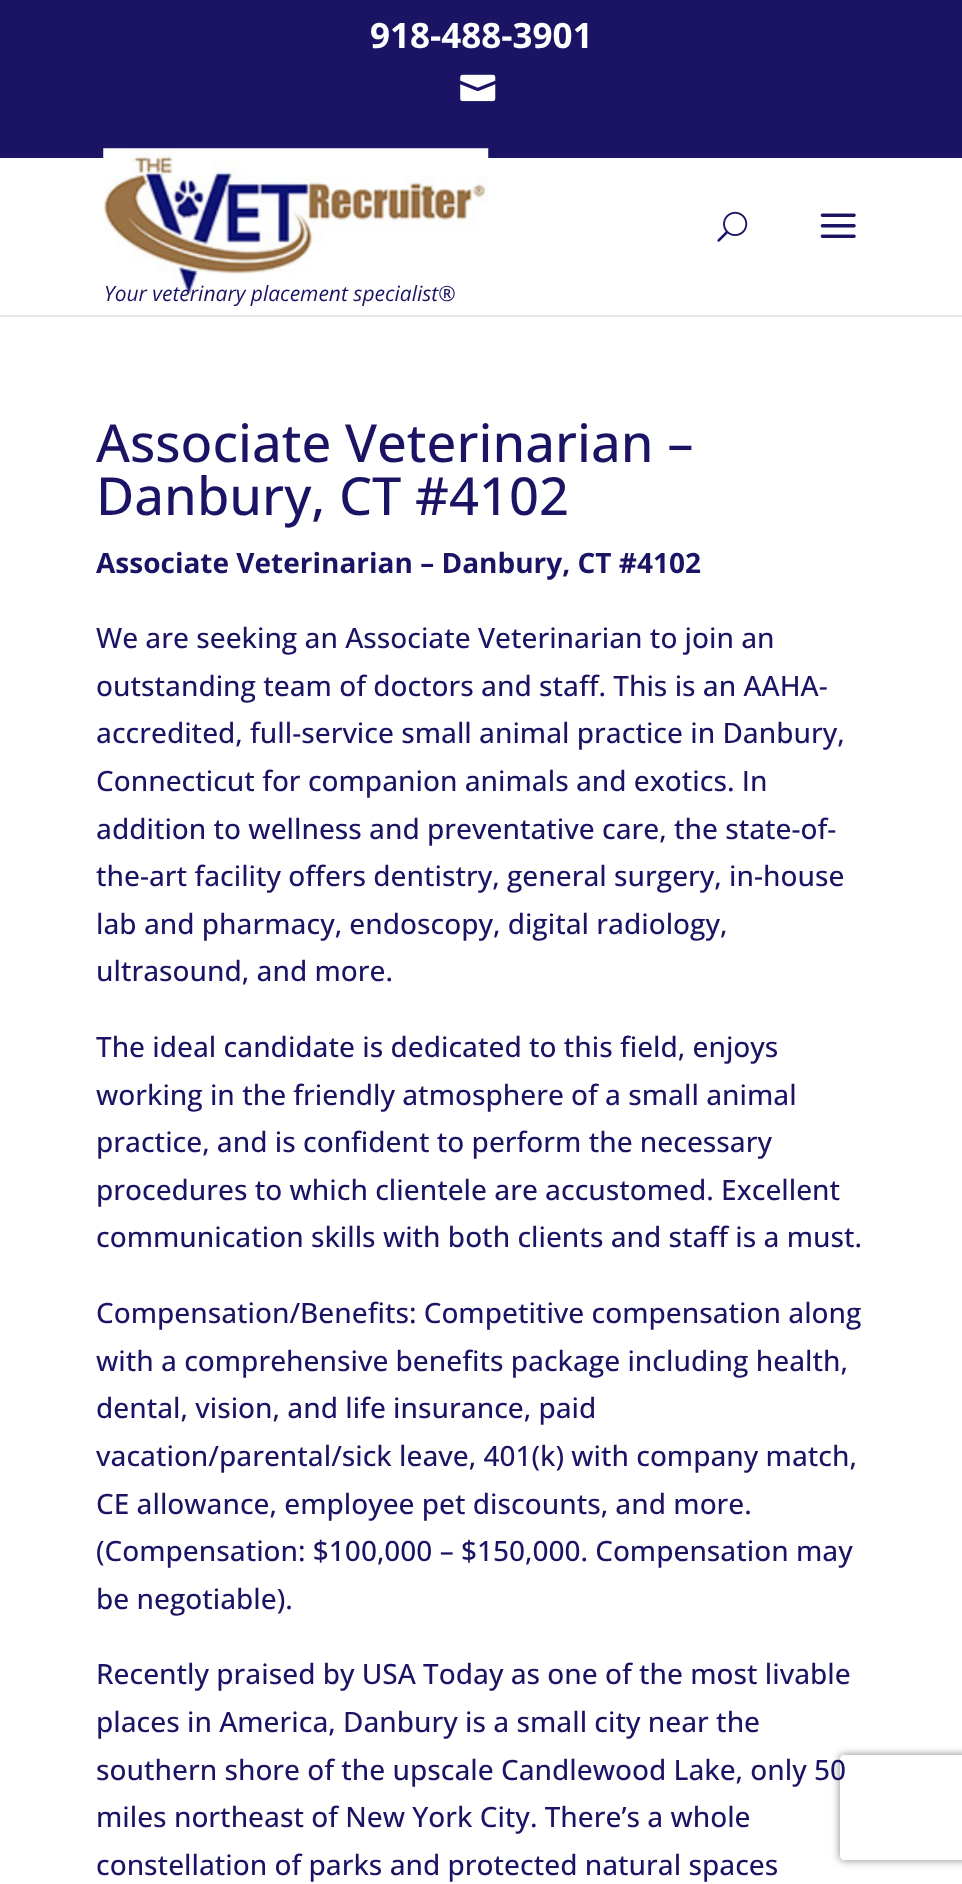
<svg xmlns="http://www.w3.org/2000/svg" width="962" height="1884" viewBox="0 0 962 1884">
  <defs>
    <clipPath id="clip1"><path d="M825 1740H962V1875H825ZM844 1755H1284C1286 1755 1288 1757 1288 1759V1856C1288 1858 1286 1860 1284 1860H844C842 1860 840 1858 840 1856V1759C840 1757 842 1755 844 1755Z" clip-rule="evenodd"/></clipPath>
  </defs>
  <rect width="100%" height="100%" fill="#fff"/>
  <path d="M0 0h962v158H0z" fill="#1b1464"/>
  <image x="460" y="74" width="36" height="28" href="img/1.png"/>
  <path d="M0 315V317H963V159H962V315Z" fill="#e6e6e6"/>
  <image x="717" y="211" width="31" height="31" href="img/2.png"/>
  <image x="820" y="213" width="36" height="25" href="img/3.png"/>
  <image x="103" y="148" width="386" height="149" href="img/4.png"/>
  <g clip-path="url(#clip1)">
    <rect x="840" y="1755" width="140" height="105" rx="4" fill="#808080" filter="blur(4.5px)"/>
  </g>
  <text x="370" y="48" font-family="Open Sans" font-size="35" font-weight="bold" fill="#fff">918-488-3901</text>
  <text x="104" y="301" font-family="Open Sans" font-size="21" font-style="italic" fill="#1b1464">Your veterinary placement specialist®</text>
  <g font-family="Open Sans" font-size="52.5" font-weight="500" fill="#1b1464">
    <text x="96" y="462">Associate Veterinarian –</text>
    <text x="96" y="515">Danbury, CT #4102</text>
  </g>
  <text x="96" y="573" font-family="Open Sans" font-size="28" font-weight="bold" fill="#1b1464">Associate Veterinarian – Danbury, CT #4102</text>
  <g font-family="Open Sans" font-size="28" font-weight="500" fill="#1b1464">
    <text x="96" y="648">We are seeking an Associate Veterinarian to join an</text>
    <text x="96" y="696">outstanding team of doctors and staff. This is an AAHA-</text>
    <text x="96" y="743">accredited, full-service small animal practice in Danbury,</text>
    <text x="96" y="791">Connecticut for companion animals and exotics. In</text>
    <text x="96" y="839">addition to wellness and preventative care, the state-of-</text>
    <text x="96" y="886">the-art facility offers dentistry, general surgery, in-house</text>
    <text x="96" y="934">lab and pharmacy, endoscopy, digital radiology,</text>
    <text x="96" y="981">ultrasound, and more.</text>
    <text x="96" y="1057">The ideal candidate is dedicated to this field, enjoys</text>
    <text x="96" y="1105">working in the friendly atmosphere of a small animal</text>
    <text x="96" y="1152">practice, and is confident to perform the necessary</text>
    <text x="96" y="1200">procedures to which clientele are accustomed. Excellent</text>
    <text x="96" y="1247">communication skills with both clients and staff is a must.</text>
    <text x="96" y="1323">Compensation/Benefits: Competitive compensation along</text>
    <text x="96" y="1371">with a comprehensive benefits package including health,</text>
    <text x="96" y="1418">dental, vision, and life insurance, paid</text>
    <text x="96" y="1466">vacation/parental/sick leave, 401(k) with company match,</text>
    <text x="96" y="1514">CE allowance, employee pet discounts, and more.</text>
    <text x="96" y="1561">(Compensation: $100,000 – $150,000. Compensation may</text>
    <text x="96" y="1609">be negotiable).</text>
    <text x="96" y="1684">Recently praised by USA Today as one of the most livable</text>
    <text x="96" y="1732">places in America, Danbury is a small city near the</text>
    <text x="96" y="1780">southern shore of the upscale Candlewood Lake, only 50</text>
    <text x="96" y="1827">miles northeast of New York City. There’s a whole</text>
    <text x="96" y="1875">constellation of parks and protected natural spaces</text>
  </g>
</svg>
